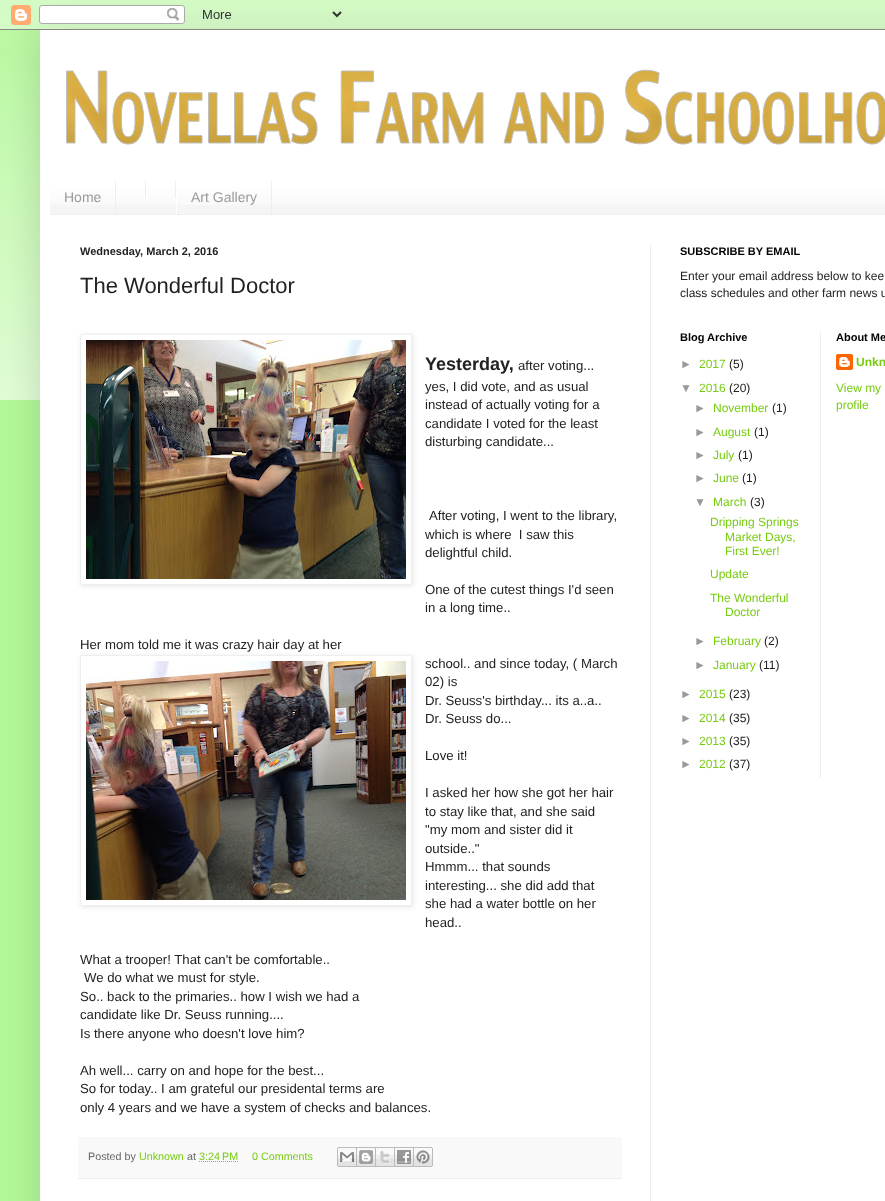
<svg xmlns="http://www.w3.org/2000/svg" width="885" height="1201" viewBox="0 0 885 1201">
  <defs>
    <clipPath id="clip1"><path d="M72 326H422V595H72ZM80 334H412V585H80Z" clip-rule="evenodd"/></clipPath>
    <clipPath id="clip2"><path d="M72 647H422V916H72ZM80 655H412V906H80Z" clip-rule="evenodd"/></clipPath>
  </defs>
  <rect width="100%" height="100%" fill="#b4f999"/>
  <image x="0" y="0" width="885" height="400" href="img/1.png"/>
  <path d="M40 30h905v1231H40z" fill="#00000026" filter="blur(20px)"/>
  <image x="0" y="0" width="885" height="30" href="img/2.png"/>
  <path d="M40 30h845v1171H40z" fill="#fff"/>
  <image x="50" y="40" width="835" height="141" href="img/3.png"/>
  <path d="M50 182h835v32H50z" fill="#f5f5f5"/>
  <image x="50" y="181" width="835" height="24" href="img/4.png"/>
  <path d="M50 214h835v1H50z" fill="#eee"/>
  <path d="M115 181h1v33H115z" fill="#eee"/>
  <path d="M145 181h1v17H145z" fill="#eee"/>
  <path d="M116 192h1v6H116z" fill="#fff"/>
  <path d="M175 181h1v17H175z" fill="#eee"/>
  <path d="M146 192h1v6H146z" fill="#fff"/>
  <path d="M271 181h1v33H271z" fill="#eee"/>
  <path d="M176 192h1v22H176z" fill="#fff"/>
  <path d="M650 245h1v956H650z" fill="#eee"/>
  <g clip-path="url(#clip1)">
    <path d="M81 335h332v251H81z" fill="#0000001a" filter="blur(2.5px)"/>
  </g>
  <path d="M80.5 334.5h331v250H80.5z" fill="none" stroke="#eee"/>
  <image x="86" y="340" width="320" height="239" href="img/5.png"/>
  <g clip-path="url(#clip2)">
    <path d="M81 656h332v251H81z" fill="#0000001a" filter="blur(2.5px)"/>
  </g>
  <path d="M80.5 655.5h331v250H80.5z" fill="none" stroke="#eee"/>
  <image x="86" y="661" width="320" height="239" href="img/6.png"/>
  <path d="M78 1137h544v41H78z" fill="#f9f9f9"/>
  <path d="M78 1178h544v1H78z" fill="#eee"/>
  <path d="M199 1161.5H238.5" fill="none" stroke="#7c1" stroke-dasharray="1 1"/>
  <image x="337" y="1147" width="20" height="20" href="img/7.png"/>
  <image x="357" y="1147" width="19" height="20" href="img/8.png"/>
  <image x="376" y="1147" width="19" height="20" href="img/9.png"/>
  <image x="395" y="1147" width="19" height="20" href="img/10.png"/>
  <image x="414" y="1147" width="19" height="20" href="img/11.png"/>
  <path d="M820 331h1v447H820z" fill="#eee"/>
  <image x="836" y="354" width="17" height="16" href="img/12.png"/>
  <g font-family="Liberation Sans" font-size="14" fill="#999">
    <text x="64" y="202">Home</text>
    <text x="191" y="202">Art Gallery</text>
  </g>
  <text x="80" y="255" font-family="Liberation Sans" font-size="11" font-weight="bold" fill="#222">Wednesday, March 2, 2016</text>
  <text x="80" y="293" font-family="Liberation Sans" font-size="22" fill="#222">The Wonderful Doctor</text>
  <text x="425" y="370" font-family="Liberation Sans" font-size="18" font-weight="bold" fill="#222">Yesterday,</text>
  <g font-family="Liberation Sans" font-size="13.2" fill="#222">
    <text x="518" y="370">after voting...</text>
    <text x="425" y="391">yes, I did vote, and as usual</text>
    <text x="425" y="409">instead of actually voting for a</text>
    <text x="425" y="428">candidate I voted for the least</text>
    <text x="425" y="446">disturbing candidate...</text>
    <text x="429" y="520">After voting, I went to the library,</text>
    <text x="425" y="539" xml:space="preserve">which is where  I saw this</text>
    <text x="425" y="557">delightful child.</text>
    <text x="425" y="594">One of the cutest things I'd seen</text>
    <text x="425" y="612">in a long time..</text>
    <text x="80" y="649">Her mom told me it was crazy hair day at her</text>
    <text x="425" y="668">school.. and since today, ( March</text>
    <text x="425" y="686">02) is</text>
    <text x="425" y="705">Dr. Seuss's birthday... its a..a..</text>
    <text x="425" y="723">Dr. Seuss do...</text>
    <text x="425" y="760">Love it!</text>
    <text x="425" y="797">I asked her how she got her hair</text>
    <text x="425" y="816">to stay like that, and she said</text>
    <text x="425" y="834">"my mom and sister did it</text>
    <text x="425" y="853">outside.."</text>
    <text x="425" y="871">Hmmm... that sounds</text>
    <text x="425" y="890">interesting... she did add that</text>
    <text x="425" y="908">she had a water bottle on her</text>
    <text x="425" y="927">head..</text>
    <text x="80" y="964">What a trooper! That can't be comfortable..</text>
    <text x="84" y="982">We do what we must for style.</text>
    <text x="80" y="1001">So.. back to the primaries.. how I wish we had a</text>
    <text x="80" y="1019">candidate like Dr. Seuss running....</text>
    <text x="80" y="1038">Is there anyone who doesn't love him?</text>
    <text x="80" y="1075">Ah well... carry on and hope for the best...</text>
    <text x="80" y="1093">So for today.. I am grateful our presidental terms are</text>
    <text x="80" y="1112">only 4 years and we have a system of checks and balances.</text>
  </g>
  <text x="88" y="1160" font-family="Liberation Sans" font-size="10.75" fill="#666">Posted by</text>
  <text x="139" y="1160" font-family="Liberation Sans" font-size="10.75" fill="#7c1">Unknown</text>
  <text x="187" y="1160" font-family="Liberation Sans" font-size="10.75" fill="#666">at</text>
  <g font-family="Liberation Sans" font-size="10.75" fill="#7c1">
    <text x="199" y="1160">3:24 PM</text>
    <text x="252" y="1160">0 Comments</text>
  </g>
  <text x="680" y="255" font-family="Liberation Sans" font-size="11" font-weight="bold" fill="#000">SUBSCRIBE BY EMAIL</text>
  <g font-family="Liberation Sans" font-size="12" fill="#222">
    <text x="680" y="280">Enter your email address below to kee</text>
    <text x="680" y="297">class schedules and other farm news u</text>
  </g>
  <text x="680" y="341" font-family="Liberation Sans" font-size="11" font-weight="bold" fill="#000">Blog Archive</text>
  <text x="680" y="368" font-family="Liberation Sans" font-size="12" fill="#999">►</text>
  <text x="699" y="368" font-family="Liberation Sans" font-size="12" fill="#7c1">2017</text>
  <text x="729" y="368" font-family="Liberation Sans" font-size="12" fill="#222">(5)</text>
  <text x="680" y="392" font-family="Liberation Sans" font-size="12" fill="#999">▼</text>
  <text x="699" y="392" font-family="Liberation Sans" font-size="12" fill="#7c1">2016</text>
  <text x="729" y="392" font-family="Liberation Sans" font-size="12" fill="#222">(20)</text>
  <text x="694" y="412" font-family="Liberation Sans" font-size="12" fill="#999">►</text>
  <text x="713" y="412" font-family="Liberation Sans" font-size="12" fill="#7c1">November</text>
  <text x="772" y="412" font-family="Liberation Sans" font-size="12" fill="#222">(1)</text>
  <text x="694" y="436" font-family="Liberation Sans" font-size="12" fill="#999">►</text>
  <text x="713" y="436" font-family="Liberation Sans" font-size="12" fill="#7c1">August</text>
  <text x="754" y="436" font-family="Liberation Sans" font-size="12" fill="#222">(1)</text>
  <text x="694" y="459" font-family="Liberation Sans" font-size="12" fill="#999">►</text>
  <text x="713" y="459" font-family="Liberation Sans" font-size="12" fill="#7c1">July</text>
  <text x="738" y="459" font-family="Liberation Sans" font-size="12" fill="#222">(1)</text>
  <text x="694" y="482" font-family="Liberation Sans" font-size="12" fill="#999">►</text>
  <text x="713" y="482" font-family="Liberation Sans" font-size="12" fill="#7c1">June</text>
  <text x="742" y="482" font-family="Liberation Sans" font-size="12" fill="#222">(1)</text>
  <text x="694" y="506" font-family="Liberation Sans" font-size="12" fill="#999">▼</text>
  <text x="713" y="506" font-family="Liberation Sans" font-size="12" fill="#7c1">March</text>
  <text x="750" y="506" font-family="Liberation Sans" font-size="12" fill="#222">(3)</text>
  <g font-family="Liberation Sans" font-size="12" fill="#7c1">
    <text x="710" y="526">Dripping Springs</text>
    <text x="725" y="541">Market Days,</text>
    <text x="725" y="555">First Ever!</text>
    <text x="710" y="578">Update</text>
    <text x="710" y="602">The Wonderful</text>
    <text x="725" y="616">Doctor</text>
  </g>
  <text x="694" y="645" font-family="Liberation Sans" font-size="12" fill="#999">►</text>
  <text x="713" y="645" font-family="Liberation Sans" font-size="12" fill="#7c1">February</text>
  <text x="764" y="645" font-family="Liberation Sans" font-size="12" fill="#222">(2)</text>
  <text x="694" y="669" font-family="Liberation Sans" font-size="12" fill="#999">►</text>
  <text x="713" y="669" font-family="Liberation Sans" font-size="12" fill="#7c1">January</text>
  <text x="759" y="669" font-family="Liberation Sans" font-size="12" fill="#222">(11)</text>
  <text x="680" y="698" font-family="Liberation Sans" font-size="12" fill="#999">►</text>
  <text x="699" y="698" font-family="Liberation Sans" font-size="12" fill="#7c1">2015</text>
  <text x="729" y="698" font-family="Liberation Sans" font-size="12" fill="#222">(23)</text>
  <text x="680" y="722" font-family="Liberation Sans" font-size="12" fill="#999">►</text>
  <text x="699" y="722" font-family="Liberation Sans" font-size="12" fill="#7c1">2014</text>
  <text x="729" y="722" font-family="Liberation Sans" font-size="12" fill="#222">(35)</text>
  <text x="680" y="745" font-family="Liberation Sans" font-size="12" fill="#999">►</text>
  <text x="699" y="745" font-family="Liberation Sans" font-size="12" fill="#7c1">2013</text>
  <text x="729" y="745" font-family="Liberation Sans" font-size="12" fill="#222">(35)</text>
  <text x="680" y="768" font-family="Liberation Sans" font-size="12" fill="#999">►</text>
  <text x="699" y="768" font-family="Liberation Sans" font-size="12" fill="#7c1">2012</text>
  <text x="729" y="768" font-family="Liberation Sans" font-size="12" fill="#222">(37)</text>
  <text x="836" y="341" font-family="Liberation Sans" font-size="11" font-weight="bold" fill="#000">About Me</text>
  <text x="856" y="366" font-family="Liberation Sans" font-size="12" font-weight="bold" fill="#7c1">Unkn</text>
  <g font-family="Liberation Sans" font-size="12" fill="#7c1">
    <text x="836" y="392">View my</text>
    <text x="836" y="409">profile</text>
  </g>
</svg>
